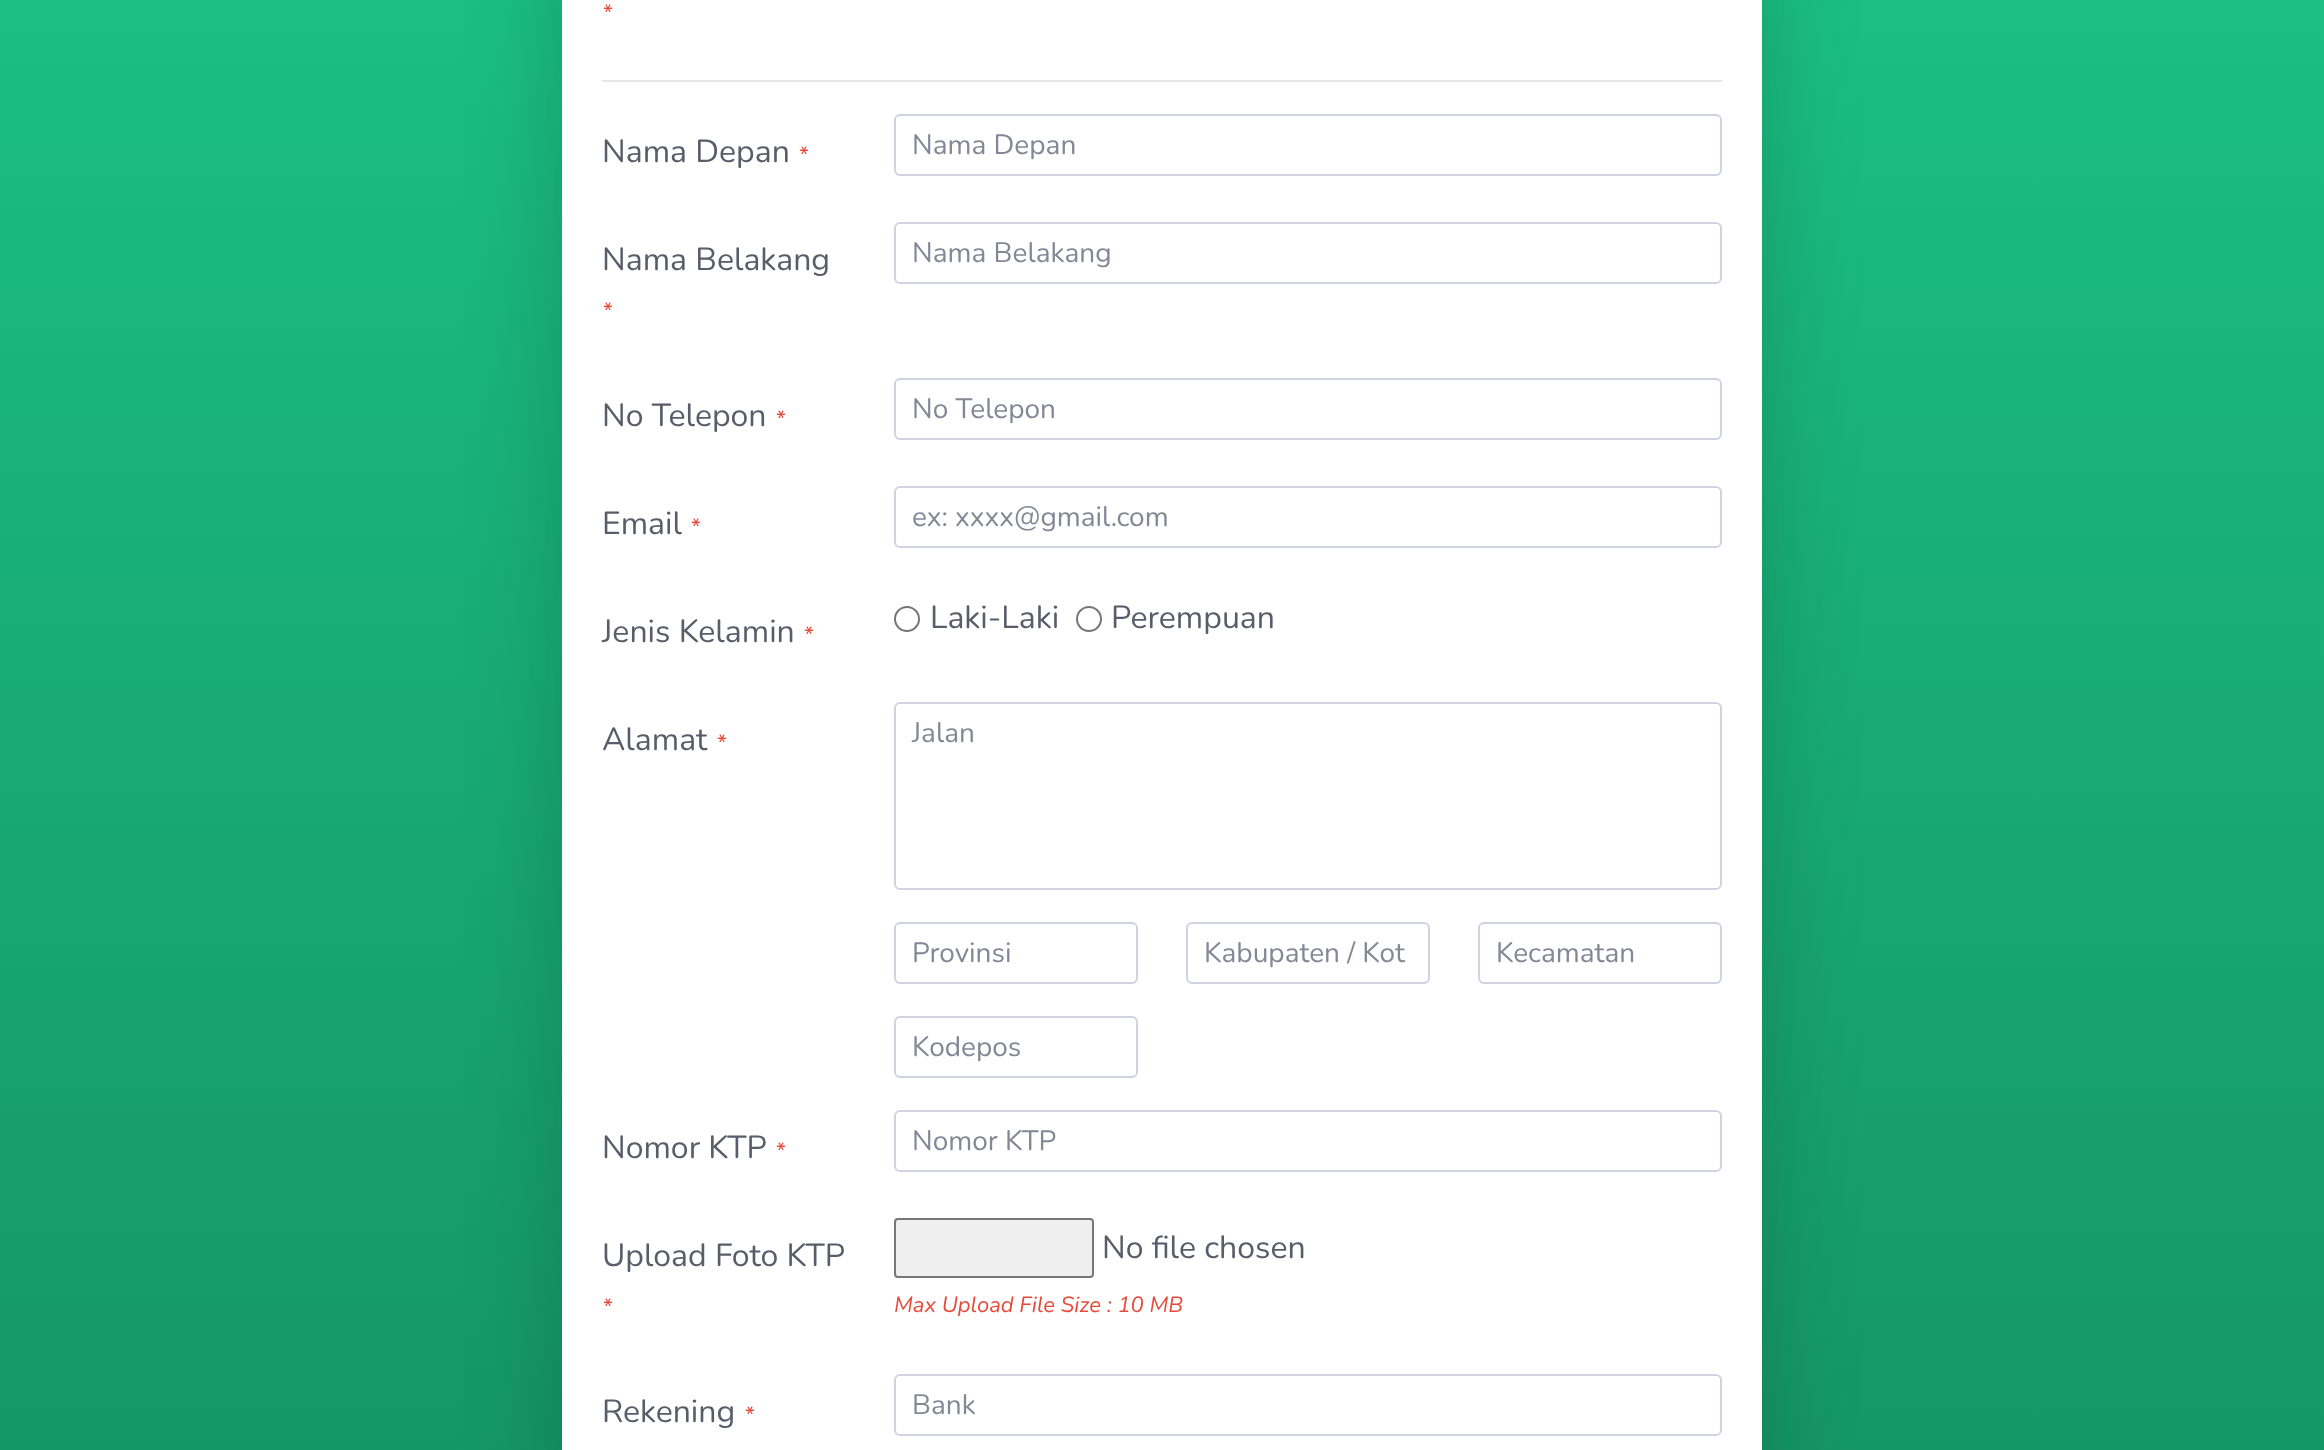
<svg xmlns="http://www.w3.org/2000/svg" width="2324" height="1450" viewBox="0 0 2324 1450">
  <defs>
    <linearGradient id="g1" gradientUnits="userSpaceOnUse" x1="1162" y1="-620" x2="1162" y2="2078"><stop offset="0.1" stop-color="#1cc88a"/><stop offset="1" stop-color="#13855c"/></linearGradient>
  </defs>
  <rect width="100%" height="100%" fill="#fff"/>
  <path d="M0 0h2324v1450H0z" fill="url(#g1)"/>
  <rect x="562" y="-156" width="1200" height="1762" rx="12" fill="#0000002e" filter="blur(48px)"/>
  <path d="M562 0h1200v1450H562z" fill="#fff"/>
  <path d="M602 80h1120v2H602z" fill="#e6e6e6"/>
  <rect x="895" y="115" width="826" height="60" rx="5" fill="none" stroke="#d1d3e2" stroke-width="2"/>
  <rect x="895" y="223" width="826" height="60" rx="5" fill="none" stroke="#d1d3e2" stroke-width="2"/>
  <rect x="895" y="379" width="826" height="60" rx="5" fill="none" stroke="#d1d3e2" stroke-width="2"/>
  <rect x="895" y="487" width="826" height="60" rx="5" fill="none" stroke="#d1d3e2" stroke-width="2"/>
  <circle cx="907" cy="619" r="12" fill="none" stroke="#767676" stroke-width="2"/>
  <circle cx="1089" cy="619" r="12" fill="none" stroke="#767676" stroke-width="2"/>
  <rect x="895" y="703" width="826" height="186" rx="5" fill="none" stroke="#d1d3e2" stroke-width="2"/>
  <rect x="895" y="923" width="242" height="60" rx="5" fill="none" stroke="#d1d3e2" stroke-width="2"/>
  <rect x="1187" y="923" width="242" height="60" rx="5" fill="none" stroke="#d1d3e2" stroke-width="2"/>
  <rect x="1479" y="923" width="242" height="60" rx="5" fill="none" stroke="#d1d3e2" stroke-width="2"/>
  <rect x="895" y="1017" width="242" height="60" rx="5" fill="none" stroke="#d1d3e2" stroke-width="2"/>
  <rect x="895" y="1111" width="826" height="60" rx="5" fill="none" stroke="#d1d3e2" stroke-width="2"/>
  <rect x="895" y="1219" width="198" height="58" rx="3" fill="#efefef" stroke="#767676" stroke-width="2"/>
  <rect x="895" y="1375" width="826" height="60" rx="5" fill="none" stroke="#d1d3e2" stroke-width="2"/>
  <text x="602" y="20" font-family="Nunito" font-size="22" font-style="italic" fill="#e74a3b">*</text>
  <text x="602" y="162" font-family="Nunito" font-size="32" fill="#5a5c69">Nama Depan</text>
  <text x="798" y="162" font-family="Nunito" font-size="22" font-style="italic" fill="#e74a3b">*</text>
  <text x="912" y="154" font-family="Nunito" font-size="28" fill="#858796">Nama Depan</text>
  <text x="602" y="270" font-family="Nunito" font-size="32" fill="#5a5c69">Nama Belakang</text>
  <text x="602" y="318" font-family="Nunito" font-size="22" font-style="italic" fill="#e74a3b">*</text>
  <text x="912" y="262" font-family="Nunito" font-size="28" fill="#858796">Nama Belakang</text>
  <text x="602" y="426" font-family="Nunito" font-size="32" fill="#5a5c69">No Telepon</text>
  <text x="775" y="426" font-family="Nunito" font-size="22" font-style="italic" fill="#e74a3b">*</text>
  <text x="912" y="418" font-family="Nunito" font-size="28" fill="#858796">No Telepon</text>
  <text x="602" y="534" font-family="Nunito" font-size="32" fill="#5a5c69">Email</text>
  <text x="690" y="534" font-family="Nunito" font-size="22" font-style="italic" fill="#e74a3b">*</text>
  <text x="912" y="526" font-family="Nunito" font-size="28" fill="#858796">ex: xxxx@gmail.com</text>
  <text x="602" y="642" font-family="Nunito" font-size="32" fill="#5a5c69">Jenis Kelamin</text>
  <text x="803" y="642" font-family="Nunito" font-size="22" font-style="italic" fill="#e74a3b">*</text>
  <g font-family="Nunito" font-size="32" fill="#5a5c69">
    <text x="930" y="628">Laki-Laki</text>
    <text x="1111" y="628">Perempuan</text>
    <text x="602" y="750">Alamat</text>
  </g>
  <text x="716" y="750" font-family="Nunito" font-size="22" font-style="italic" fill="#e74a3b">*</text>
  <g font-family="Nunito" font-size="28" fill="#858796">
    <text x="912" y="742">Jalan</text>
    <text x="912" y="962">Provinsi</text>
    <text x="1204" y="962">Kabupaten / Kot</text>
    <text x="1496" y="962">Kecamatan</text>
    <text x="912" y="1056">Kodepos</text>
  </g>
  <text x="602" y="1158" font-family="Nunito" font-size="32" fill="#5a5c69">Nomor KTP</text>
  <text x="775" y="1158" font-family="Nunito" font-size="22" font-style="italic" fill="#e74a3b">*</text>
  <text x="912" y="1150" font-family="Nunito" font-size="28" fill="#858796">Nomor KTP</text>
  <text x="602" y="1266" font-family="Nunito" font-size="32" fill="#5a5c69">Upload Foto KTP</text>
  <text x="602" y="1314" font-family="Nunito" font-size="22" font-style="italic" fill="#e74a3b">*</text>
  <text x="1102" y="1258" font-family="Nunito" font-size="32" fill="#5a5c69">No file chosen</text>
  <text x="894" y="1312" font-family="Nunito" font-size="22" font-style="italic" fill="#e74a3b">Max Upload File Size : 10 MB</text>
  <text x="602" y="1422" font-family="Nunito" font-size="32" fill="#5a5c69">Rekening</text>
  <text x="744" y="1422" font-family="Nunito" font-size="22" font-style="italic" fill="#e74a3b">*</text>
  <text x="912" y="1414" font-family="Nunito" font-size="28" fill="#858796">Bank</text>
</svg>
